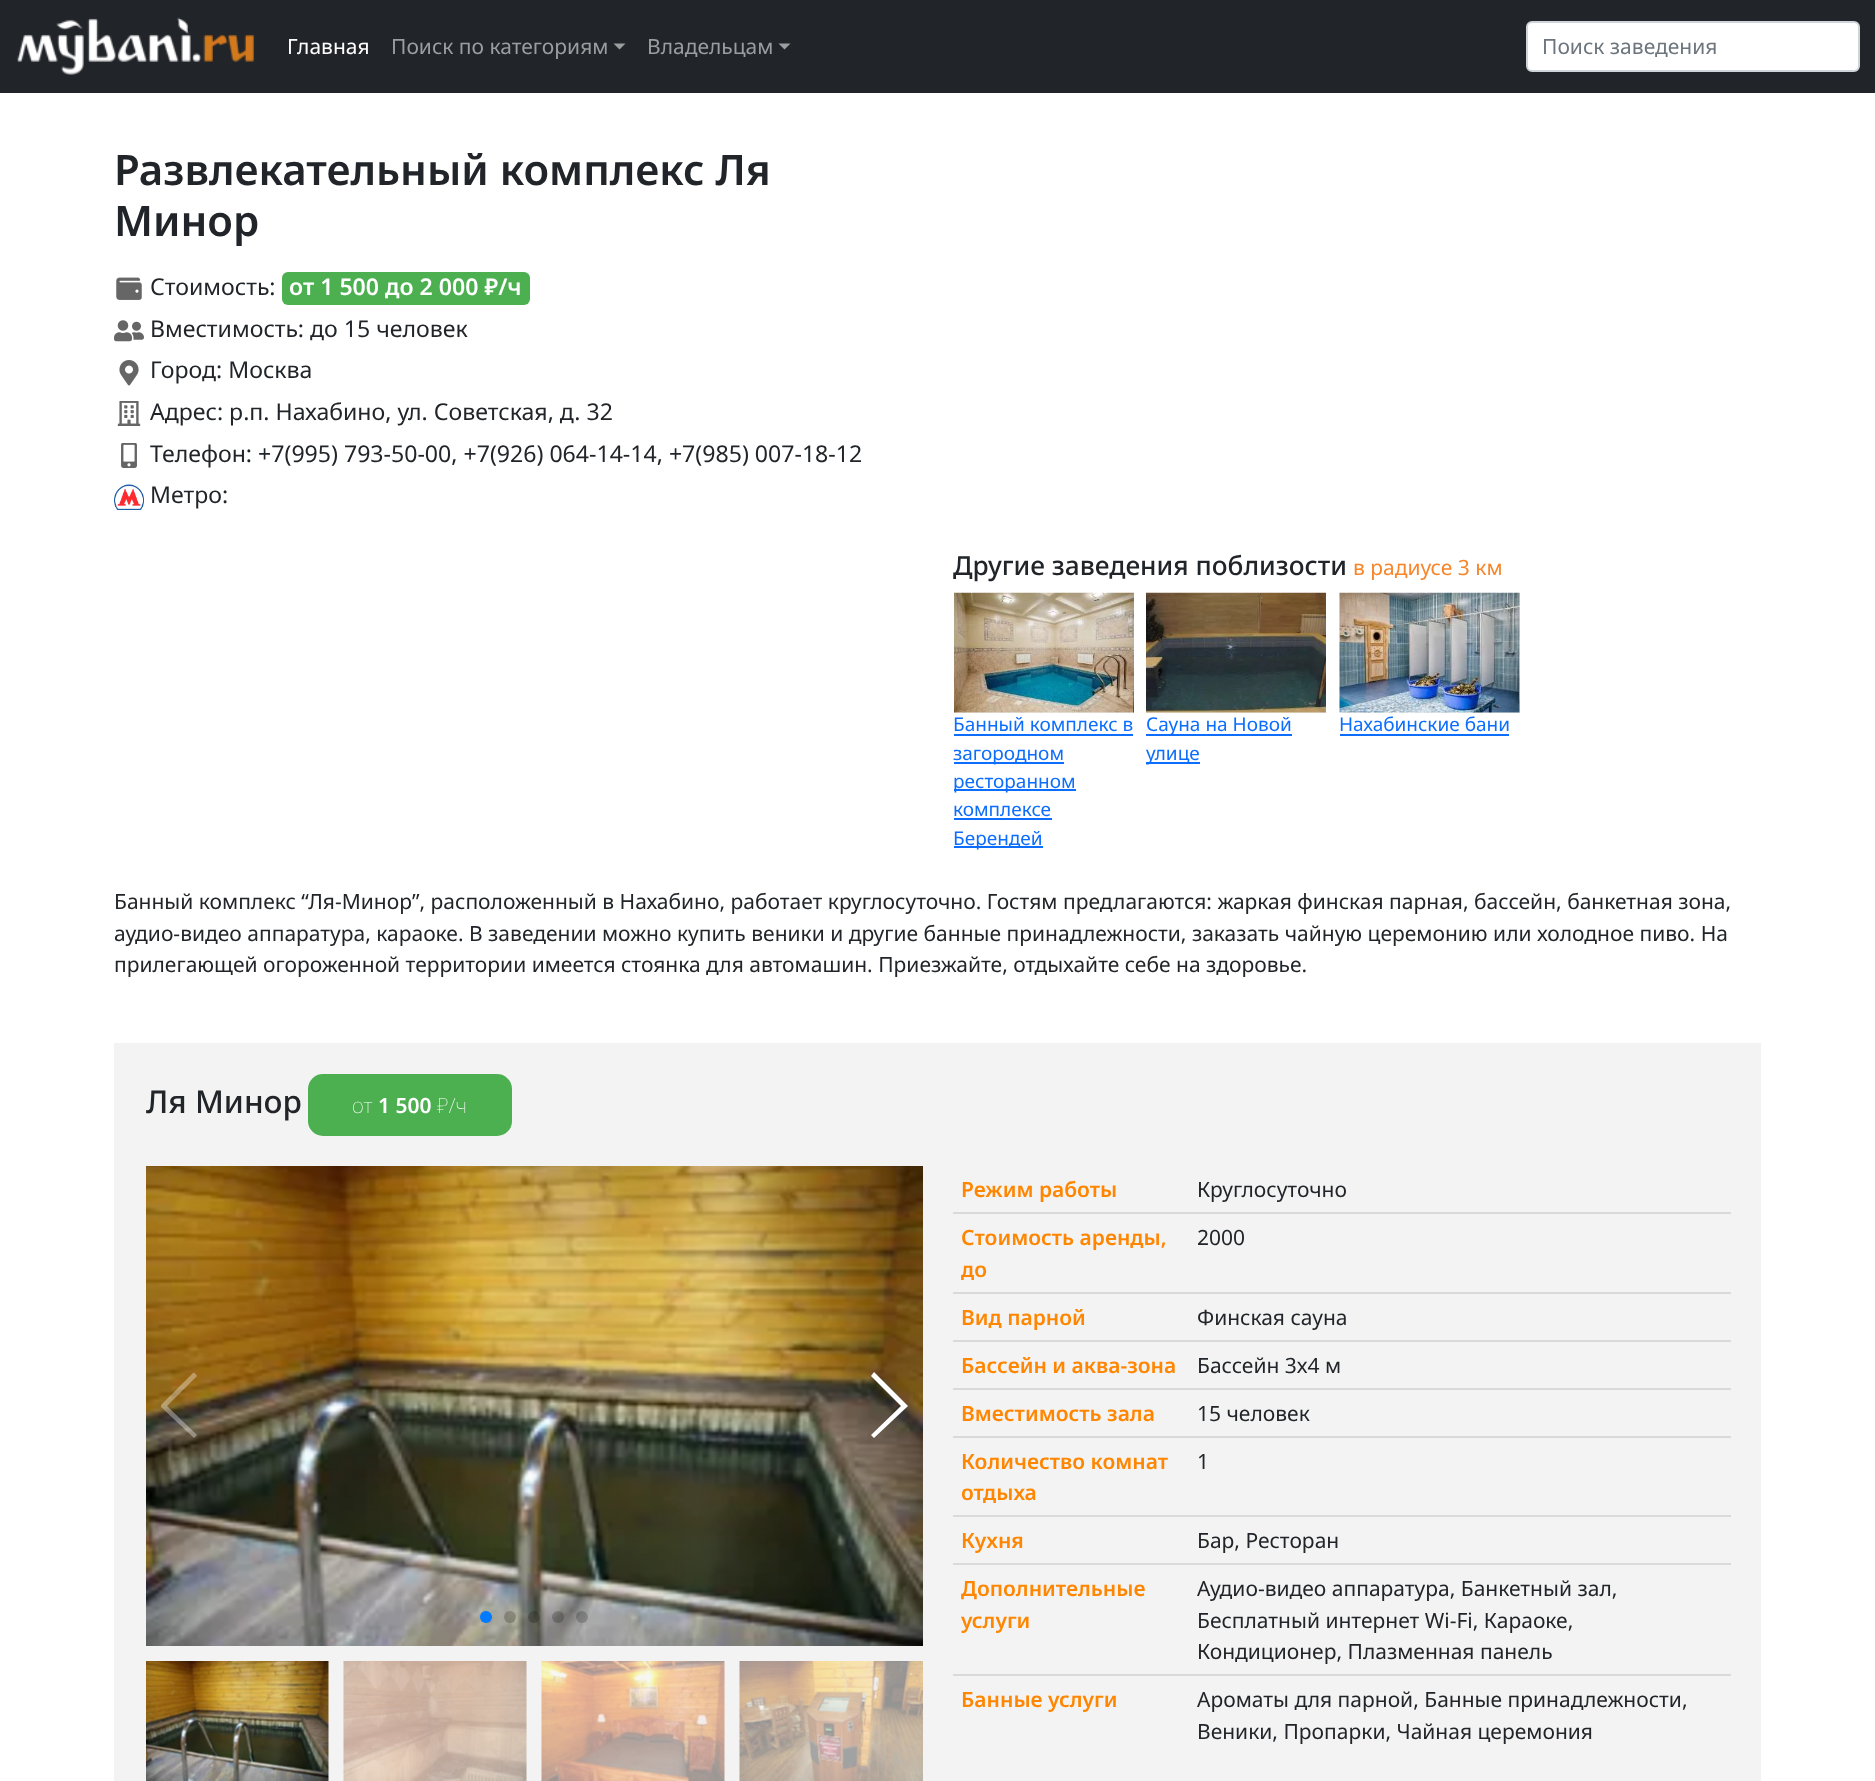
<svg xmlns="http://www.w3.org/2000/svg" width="1875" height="1781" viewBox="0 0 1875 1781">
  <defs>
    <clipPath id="clip1"><path d="M161 1373h40v66H161z"/></clipPath>
  </defs>
  <rect width="100%" height="100%" fill="#fff"/>
  <path d="M0 0h1875v93H0z" fill="#212529"/>
  <image x="17" y="17" width="238" height="58" href="img/1.png"/>
  <path d="M613.5 43.5H625.5L619.5 49.5Z" fill="#9b9d9f"/>
  <path d="M778.5 43.5H790.5L784.5 49.5Z" fill="#9b9d9f"/>
  <rect x="1527" y="22" width="332" height="49" rx="5" fill="#fff" stroke="#ced4da" stroke-width="2"/>
  <image x="116" y="277" width="26" height="23" href="img/2.png"/>
  <rect x="282" y="272" width="248" height="33" rx="6" fill="#4caf50"/>
  <image x="114" y="320" width="30" height="22" href="img/3.png"/>
  <image x="119" y="360" width="20" height="26" href="img/4.png"/>
  <image x="117" y="401" width="24" height="25" href="img/5.png"/>
  <image x="121" y="443" width="16" height="25" href="img/6.png"/>
  <image x="114" y="484" width="30" height="26" href="img/7.png"/>
  <path d="M954 712h180v1H954z" fill="#f3f3f3"/>
  <image x="954" y="592" width="180" height="121" href="img/8.png"/>
  <path d="M954 734h179v2H954z" fill="#0d6efd"/>
  <path d="M954 762h110v2H954z" fill="#0d6efd"/>
  <path d="M954 789h122v2H954z" fill="#0d6efd"/>
  <path d="M954 818h98v2H954z" fill="#0d6efd"/>
  <path d="M954 846h89v2H954z" fill="#0d6efd"/>
  <path d="M1146 712h180v1H1146z" fill="#f3f3f3"/>
  <image x="1146" y="592" width="180" height="121" href="img/9.png"/>
  <path d="M1146 734h146v2H1146z" fill="#0d6efd"/>
  <path d="M1146 762h54v2H1146z" fill="#0d6efd"/>
  <path d="M1340 593h180v120H1340z" fill="#f3f3f3"/>
  <image x="1339" y="592" width="181" height="121" href="img/10.png"/>
  <path d="M1340 734h169v2H1340z" fill="#0d6efd"/>
  <path d="M114 1043h1647v738H114z" fill="#f3f3f3"/>
  <rect x="308" y="1074" width="204" height="62" rx="15" fill="#4caf50"/>
  <image x="146" y="1166" width="777" height="480" href="img/11.png"/>
  <g clip-path="url(#clip1)">
    <path d="M160 1406L194 1372L197 1376L167 1406L197 1435L194 1438Z" fill="#ffffff59"/>
  </g>
  <path d="M908 1406L874 1438L871 1435L901 1406L871 1376L874 1372Z" fill="#fff"/>
  <circle cx="486" cy="1617" r="6" fill="#007aff"/>
  <circle cx="510" cy="1617" r="6" fill="#00000033"/>
  <circle cx="534" cy="1617" r="6" fill="#00000033"/>
  <circle cx="558" cy="1617" r="6" fill="#00000033"/>
  <circle cx="582" cy="1617" r="6" fill="#00000033"/>
  <image x="146" y="1661" width="183" height="120" href="img/12.png"/>
  <image x="343" y="1661" width="184" height="120" href="img/13.png"/>
  <image x="541" y="1661" width="184" height="120" href="img/14.png"/>
  <image x="739" y="1661" width="184" height="120" href="img/15.png"/>
  <path d="M953 1212h778v2H953z" fill="#dadada"/>
  <path d="M953 1292h778v2H953z" fill="#dadada"/>
  <path d="M953 1340h778v2H953z" fill="#dadada"/>
  <path d="M953 1388h778v2H953z" fill="#dadada"/>
  <path d="M953 1436h778v2H953z" fill="#dadada"/>
  <path d="M953 1515h778v2H953z" fill="#dadada"/>
  <path d="M953 1563h778v2H953z" fill="#dadada"/>
  <path d="M953 1674h778v2H953z" fill="#dadada"/>
  <text x="287" y="54" font-family="Noto Sans" font-size="21" fill="#fff">Главная</text>
  <g font-family="Noto Sans" font-size="21" fill="#9b9d9f">
    <text x="391" y="54">Поиск по категориям</text>
    <text x="647" y="54">Владельцам</text>
  </g>
  <text x="1542" y="54" font-family="Noto Sans" font-size="21" fill="#6c757d">Поиск заведения</text>
  <g font-family="Noto Sans" font-size="42" font-weight="600" fill="#212529">
    <text x="114" y="185">Развлекательный комплекс Ля</text>
    <text x="114" y="236">Минор</text>
  </g>
  <text x="150" y="295" font-family="Noto Sans" font-size="23.1" fill="#212529">Стоимость:</text>
  <text x="289" y="295" font-family="Noto Sans" font-size="23.1" font-weight="600" fill="#fff">от 1 500 до 2 000 ₽/ч</text>
  <g font-family="Noto Sans" font-size="23.1" fill="#212529">
    <text x="150" y="337">Вместимость: до 15 человек</text>
    <text x="150" y="378">Город: Москва</text>
    <text x="150" y="420">Адрес: р.п. Нахабино, ул. Советская, д. 32</text>
    <text x="150" y="462">Телефон: +7(995) 793-50-00, +7(926) 064-14-14, +7(985) 007-18-12</text>
    <text x="150" y="503">Метро:</text>
  </g>
  <text x="953" y="575" font-family="Noto Sans" font-size="26.25" font-weight="500" fill="#212529">Другие заведения поблизости</text>
  <text x="1353" y="575" font-family="Noto Sans" font-size="21" fill="#f7862b">в радиусе 3 км</text>
  <g font-family="Noto Sans" font-size="19" fill="#0d6efd">
    <text x="953" y="731">Банный комплекс в</text>
    <text x="953" y="760">загородном</text>
    <text x="953" y="788">ресторанном</text>
    <text x="953" y="816">комплексе</text>
    <text x="953" y="845">Берендей</text>
    <text x="1146" y="731">Сауна на Новой</text>
    <text x="1146" y="760">улице</text>
    <text x="1339" y="731">Нахабинские бани</text>
  </g>
  <g font-family="Noto Sans" font-size="21" fill="#212529">
    <text x="114" y="909">Банный комплекс “Ля-Минор”, расположенный в Нахабино, работает круглосуточно. Гостям предлагаются: жаркая финская парная, бассейн, банкетная зона,</text>
    <text x="114" y="941">аудио-видео аппаратура, караоке. В заведении можно купить веники и другие банные принадлежности, заказать чайную церемонию или холодное пиво. На</text>
    <text x="114" y="972">прилегающей огороженной территории имеется стоянка для автомашин. Приезжайте, отдыхайте себе на здоровье.</text>
  </g>
  <text x="146" y="1113" font-family="Noto Sans" font-size="31.5" font-weight="500" fill="#212529">Ля Минор</text>
  <text x="352" y="1113" font-family="Noto Sans" font-size="21" font-weight="100" fill="#fff">от</text>
  <text x="378" y="1113" font-family="Noto Sans" font-size="21" font-weight="600" fill="#fff">1 500</text>
  <text x="437" y="1113" font-family="Noto Sans" font-size="21" font-weight="100" fill="#fff">₽/ч</text>
  <text x="961" y="1197" font-family="Noto Sans" font-size="21" font-weight="600" fill="#ff8600">Режим работы</text>
  <text x="1197" y="1197" font-family="Noto Sans" font-size="21" fill="#212529">Круглосуточно</text>
  <g font-family="Noto Sans" font-size="21" font-weight="600" fill="#ff8600">
    <text x="961" y="1245">Стоимость аренды,</text>
    <text x="961" y="1277">до</text>
  </g>
  <text x="1197" y="1245" font-family="Noto Sans" font-size="21" fill="#212529">2000</text>
  <text x="961" y="1325" font-family="Noto Sans" font-size="21" font-weight="600" fill="#ff8600">Вид парной</text>
  <text x="1197" y="1325" font-family="Noto Sans" font-size="21" fill="#212529">Финская сауна</text>
  <text x="961" y="1373" font-family="Noto Sans" font-size="21" font-weight="600" fill="#ff8600">Бассейн и аква-зона</text>
  <text x="1197" y="1373" font-family="Noto Sans" font-size="21" fill="#212529">Бассейн 3х4 м</text>
  <text x="961" y="1421" font-family="Noto Sans" font-size="21" font-weight="600" fill="#ff8600">Вместимость зала</text>
  <text x="1197" y="1421" font-family="Noto Sans" font-size="21" fill="#212529">15 человек</text>
  <g font-family="Noto Sans" font-size="21" font-weight="600" fill="#ff8600">
    <text x="961" y="1469">Количество комнат</text>
    <text x="961" y="1500">отдыха</text>
  </g>
  <text x="1197" y="1469" font-family="Noto Sans" font-size="21" fill="#212529">1</text>
  <text x="961" y="1548" font-family="Noto Sans" font-size="21" font-weight="600" fill="#ff8600">Кухня</text>
  <text x="1197" y="1548" font-family="Noto Sans" font-size="21" fill="#212529">Бар, Ресторан</text>
  <g font-family="Noto Sans" font-size="21" font-weight="600" fill="#ff8600">
    <text x="961" y="1596">Дополнительные</text>
    <text x="961" y="1628">услуги</text>
  </g>
  <g font-family="Noto Sans" font-size="21" fill="#212529">
    <text x="1197" y="1596">Аудио-видео аппаратура, Банкетный зал,</text>
    <text x="1197" y="1628">Бесплатный интернет Wi-Fi, Караоке,</text>
    <text x="1197" y="1659">Кондиционер, Плазменная панель</text>
  </g>
  <text x="961" y="1707" font-family="Noto Sans" font-size="21" font-weight="600" fill="#ff8600">Банные услуги</text>
  <g font-family="Noto Sans" font-size="21" fill="#212529">
    <text x="1197" y="1707">Ароматы для парной, Банные принадлежности,</text>
    <text x="1197" y="1739">Веники, Пропарки, Чайная церемония</text>
  </g>
</svg>
